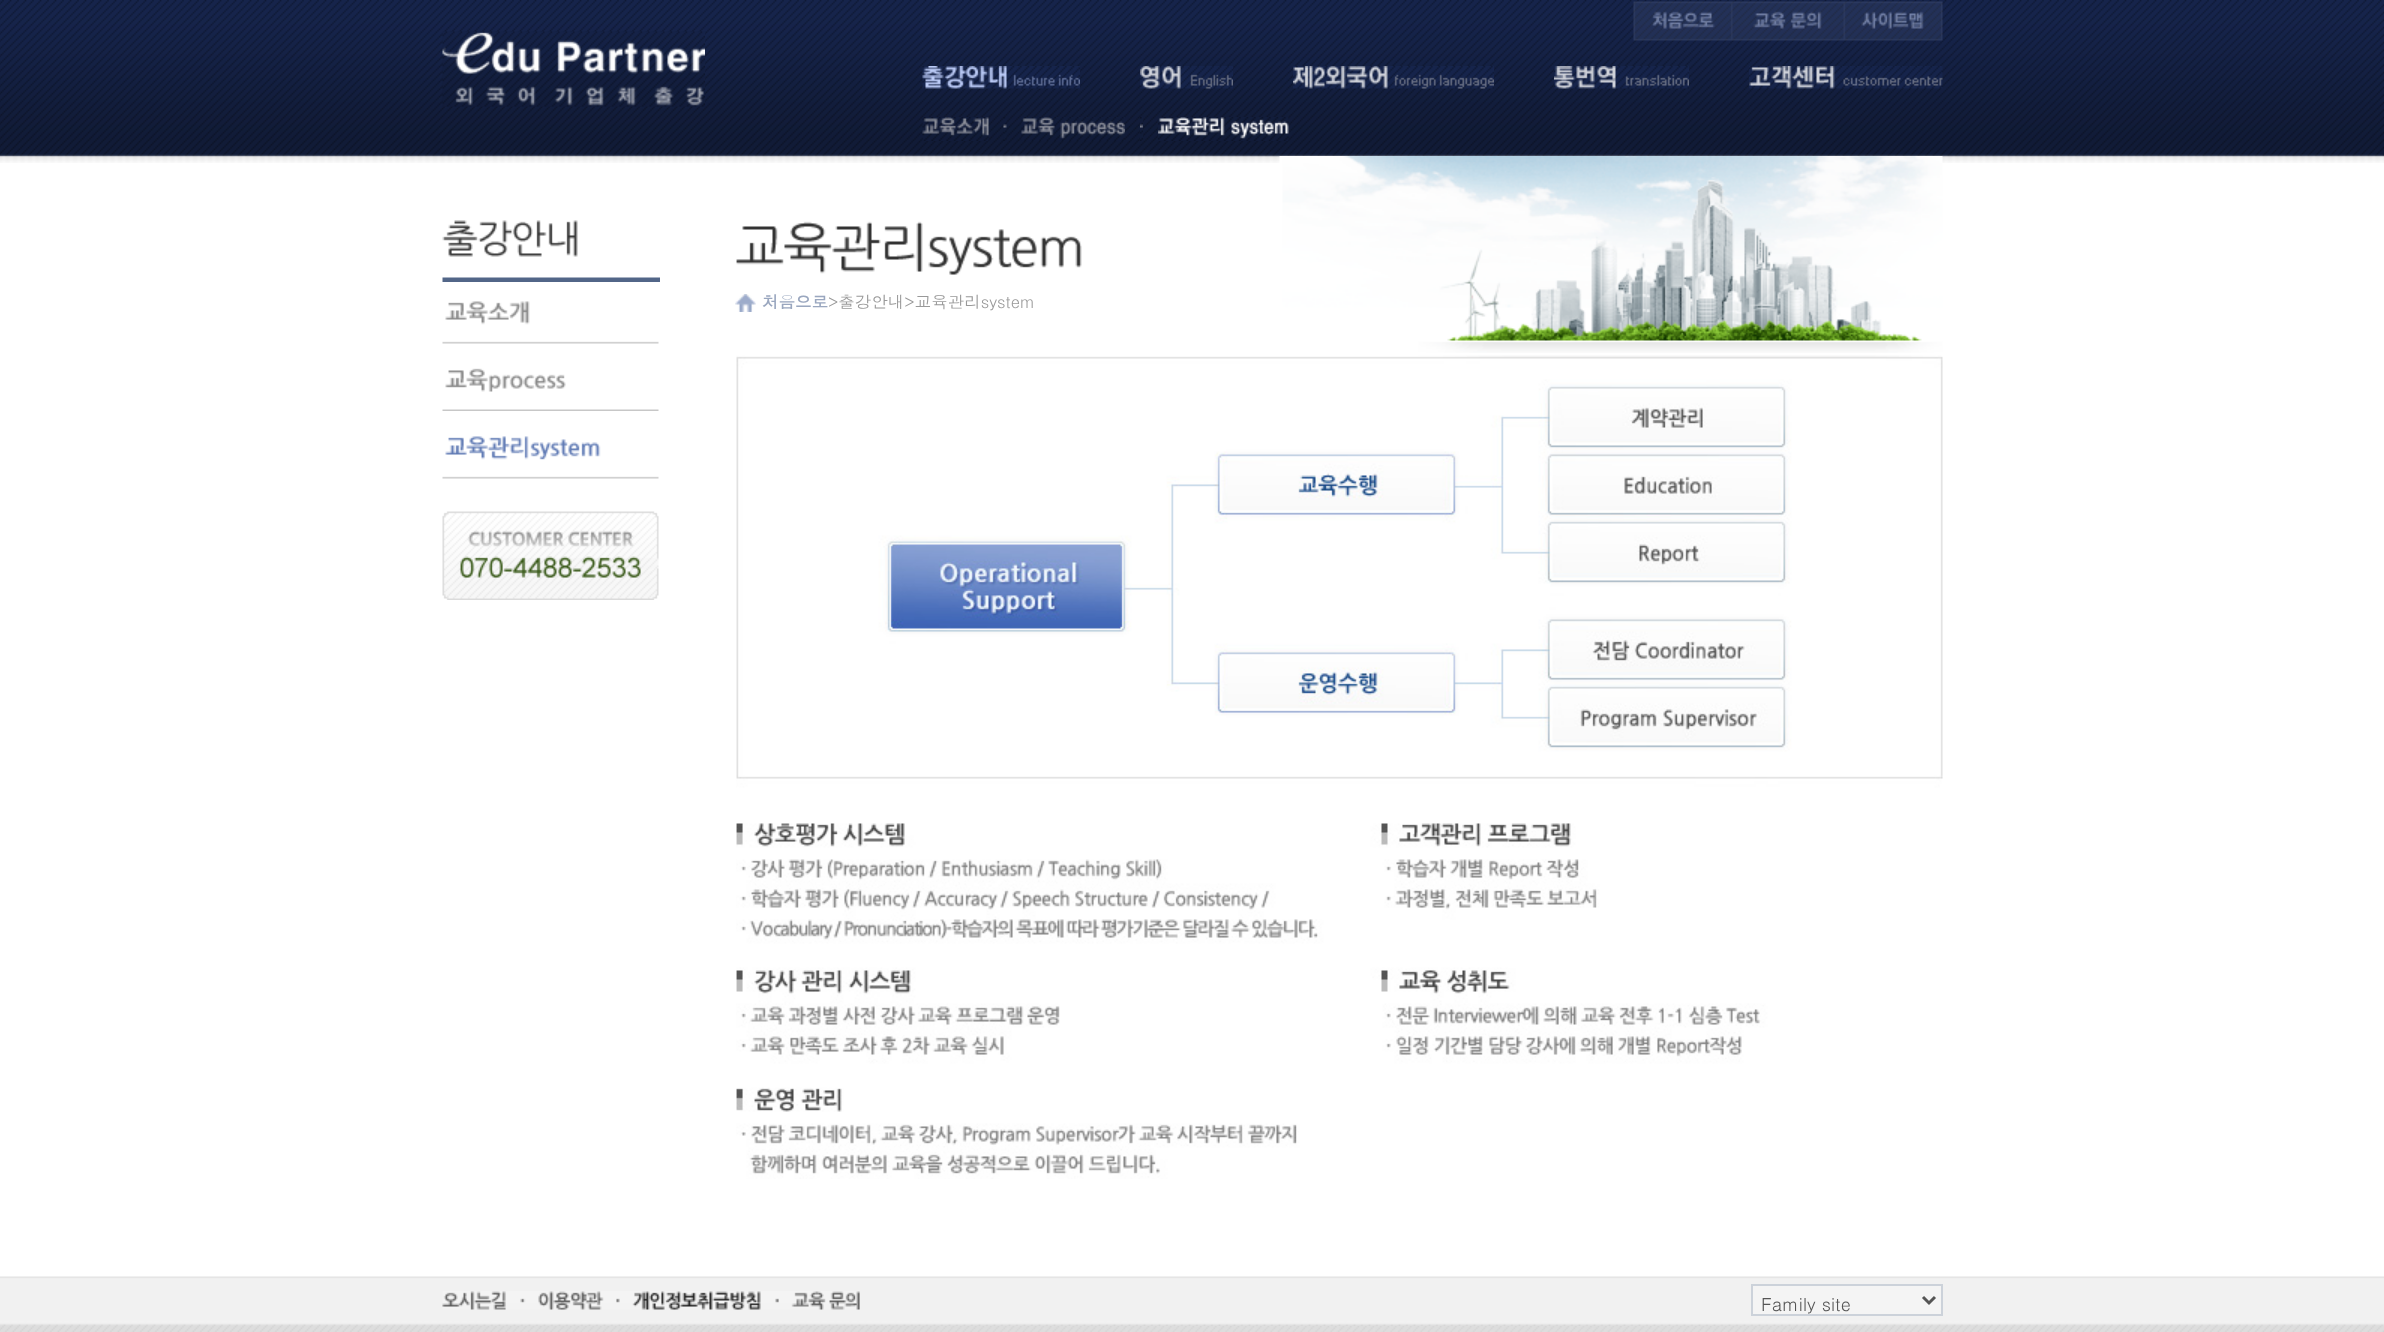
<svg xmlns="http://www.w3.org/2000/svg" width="2384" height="1332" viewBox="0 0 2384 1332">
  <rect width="100%" height="100%" fill="#fff"/>
  <image x="0" y="0" width="2384" height="163" href="img/1.png"/>
  <image x="1633" y="1" width="310" height="40" href="img/2.png"/>
  <image x="442" y="31" width="263" height="76" href="img/3.png"/>
  <image x="922" y="66" width="158" height="23" href="img/4.png"/>
  <image x="922" y="117" width="67" height="24" href="img/5.png"/>
  <image x="1003" y="117" width="4" height="24" href="img/6.png"/>
  <image x="1021" y="117" width="104" height="24" href="img/7.png"/>
  <image x="1140" y="117" width="3" height="24" href="img/8.png"/>
  <image x="1158" y="117" width="131" height="24" href="img/9.png"/>
  <image x="1140" y="66" width="93" height="23" href="img/10.png"/>
  <image x="1293" y="66" width="201" height="23" href="img/11.png"/>
  <image x="1554" y="66" width="135" height="23" href="img/12.png"/>
  <image x="1749" y="66" width="194" height="23" href="img/13.png"/>
  <image x="442" y="220" width="218" height="62" href="img/14.png"/>
  <image x="442" y="301" width="217" height="43" href="img/15.png"/>
  <image x="442" y="368" width="217" height="43" href="img/16.png"/>
  <image x="442" y="436" width="217" height="43" href="img/17.png"/>
  <image x="442" y="511" width="217" height="89" href="img/18.png"/>
  <image x="736" y="221" width="346" height="54" href="img/19.png"/>
  <image x="735" y="294" width="21" height="18" href="img/20.png"/>
  <image x="1279" y="156" width="664" height="197" href="img/21.png"/>
  <image x="736" y="355" width="1207" height="824" href="img/22.png"/>
  <image x="0" y="1276" width="2384" height="56" href="img/23.png"/>
  <image x="442" y="1291" width="418" height="19" href="img/24.png"/>
  <path d="M1752 1285h190v30H1752z" fill="#f4f4f4" stroke="#ccd2da" stroke-width="2"/>
  <path d="M1923 1297L1929 1303L1935 1297" fill="none" stroke="#555" stroke-width="3"/>
  <image x="442" y="1326" width="1350" height="6" href="img/25.png"/>
  <text x="762" y="308" font-family="Dotum" font-size="16.5" font-weight="bold" fill="#9aa7bf">처음으로</text>
  <text x="828" y="308" font-family="Dotum" font-size="16.5" fill="#999">&gt;출강안내&gt;교육관리system</text>
  <text x="1761" y="1311" font-family="Dotum" font-size="18" fill="#555">Family site</text>
</svg>
